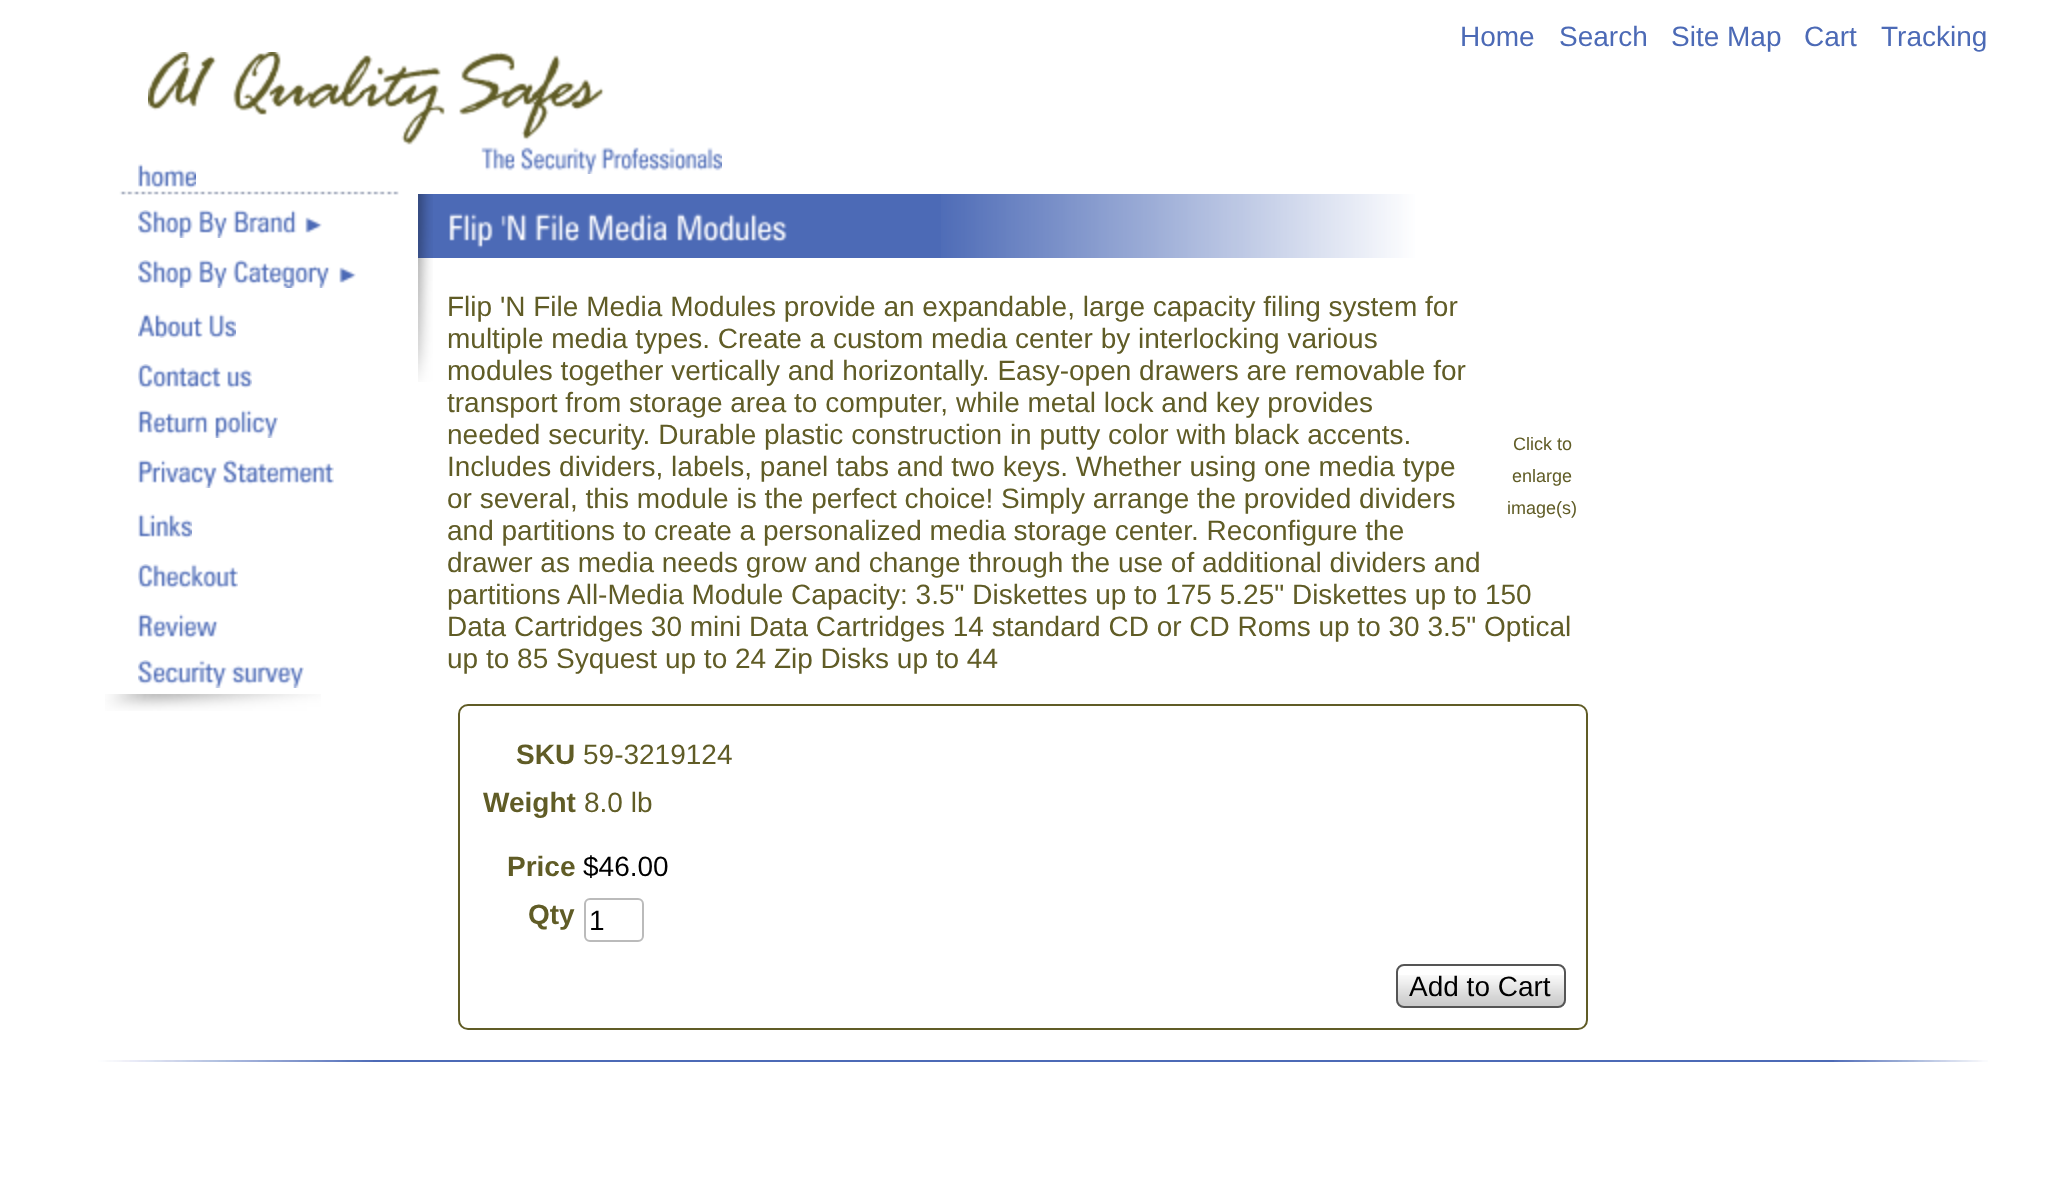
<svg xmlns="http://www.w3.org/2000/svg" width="2053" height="1184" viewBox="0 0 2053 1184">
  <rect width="100%" height="100%" fill="#fff"/>
  <image x="148" y="52" width="574" height="122" href="img/1.png"/>
  <path d="M418 194h997v64H418z" fill="#4c6ab6"/>
  <image x="941" y="194" width="687" height="64" href="img/2.png"/>
  <image x="449" y="213" width="338" height="36" href="img/3.png"/>
  <image x="98" y="191" width="320" height="67" href="img/4.png"/>
  <image x="138" y="164" width="58" height="24" href="img/5.png"/>
  <image x="138" y="210" width="184" height="28" href="img/6.png"/>
  <image x="138" y="260" width="218" height="28" href="img/7.png"/>
  <image x="138" y="314" width="98" height="24" href="img/8.png"/>
  <image x="138" y="364" width="114" height="24" href="img/9.png"/>
  <image x="138" y="410" width="140" height="28" href="img/10.png"/>
  <image x="138" y="460" width="196" height="28" href="img/11.png"/>
  <image x="138" y="514" width="54" height="24" href="img/12.png"/>
  <image x="138" y="564" width="100" height="24" href="img/13.png"/>
  <image x="138" y="614" width="80" height="24" href="img/14.png"/>
  <image x="138" y="660" width="166" height="28" href="img/15.png"/>
  <image x="418" y="194" width="15" height="188" href="img/16.png"/>
  <image x="105" y="694" width="216" height="17" href="img/17.png"/>
  <rect x="459" y="705" width="1128" height="324" rx="9" fill="none" stroke="#605c26" stroke-width="2"/>
  <rect x="585" y="899" width="58" height="42" rx="5" fill="none" stroke="#bbb" stroke-width="2"/>
  <image x="1396" y="975" width="170" height="31" href="img/18.png"/>
  <rect x="1397" y="965" width="168" height="42" rx="7" fill="none" stroke="#555" stroke-width="2"/>
  <path d="M373 1060h1461v2H373z" fill="#4c6ab6"/>
  <image x="98" y="1060" width="275" height="2" href="img/19.png"/>
  <image x="1834" y="1060" width="154" height="2" href="img/20.png"/>
  <g font-family="Liberation Sans" font-size="28" fill="#4c6ab6">
    <text x="1460" y="46">Home</text>
    <text x="1559" y="46">Search</text>
    <text x="1671" y="46">Site Map</text>
    <text x="1804" y="46">Cart</text>
    <text x="1881" y="46">Tracking</text>
  </g>
  <g font-family="Liberation Sans" font-size="28" fill="#605c26">
    <text x="447" y="316">Flip 'N File Media Modules provide an expandable, large capacity filing system for</text>
    <text x="447" y="348">multiple media types. Create a custom media center by interlocking various</text>
    <text x="447" y="380">modules together vertically and horizontally. Easy-open drawers are removable for</text>
    <text x="447" y="412">transport from storage area to computer, while metal lock and key provides</text>
    <text x="447" y="444">needed security. Durable plastic construction in putty color with black accents.</text>
  </g>
  <g font-family="Liberation Sans" font-size="18" fill="#605c26">
    <text x="1513" y="450">Click to</text>
    <text x="1512" y="482">enlarge</text>
    <text x="1507" y="514">image(s)</text>
  </g>
  <g font-family="Liberation Sans" font-size="28" fill="#605c26">
    <text x="447" y="476">Includes dividers, labels, panel tabs and two keys. Whether using one media type</text>
    <text x="447" y="508">or several, this module is the perfect choice! Simply arrange the provided dividers</text>
    <text x="447" y="540">and partitions to create a personalized media storage center. Reconfigure the</text>
    <text x="447" y="572">drawer as media needs grow and change through the use of additional dividers and</text>
    <text x="447" y="604">partitions</text>
    <text x="567" y="604">All-Media Module Capacity: 3.5" Diskettes up to 175 5.25" Diskettes up to 150</text>
    <text x="447" y="636">Data Cartridges 30 mini Data Cartridges 14 standard CD or CD Roms up to 30 3.5" Optical</text>
    <text x="447" y="668">up to 85 Syquest up to 24 Zip Disks up to 44</text>
  </g>
  <text x="516" y="764" font-family="Liberation Sans" font-size="28" font-weight="bold" fill="#605c26">SKU</text>
  <text x="583" y="764" font-family="Liberation Sans" font-size="28" fill="#605c26">59-3219124</text>
  <text x="483" y="812" font-family="Liberation Sans" font-size="28" font-weight="bold" fill="#605c26">Weight</text>
  <text x="584" y="812" font-family="Liberation Sans" font-size="28" fill="#605c26">8.0 lb</text>
  <text x="507" y="876" font-family="Liberation Sans" font-size="28" font-weight="bold" fill="#605c26">Price</text>
  <text x="583" y="876" font-family="Liberation Sans" font-size="28" fill="#000">$46.00</text>
  <text x="528" y="924" font-family="Liberation Sans" font-size="28" font-weight="bold" fill="#605c26">Qty</text>
  <g font-family="Liberation Sans" font-size="28" fill="#000">
    <text x="589" y="930">1</text>
    <text x="1409" y="996">Add to Cart</text>
  </g>
</svg>
